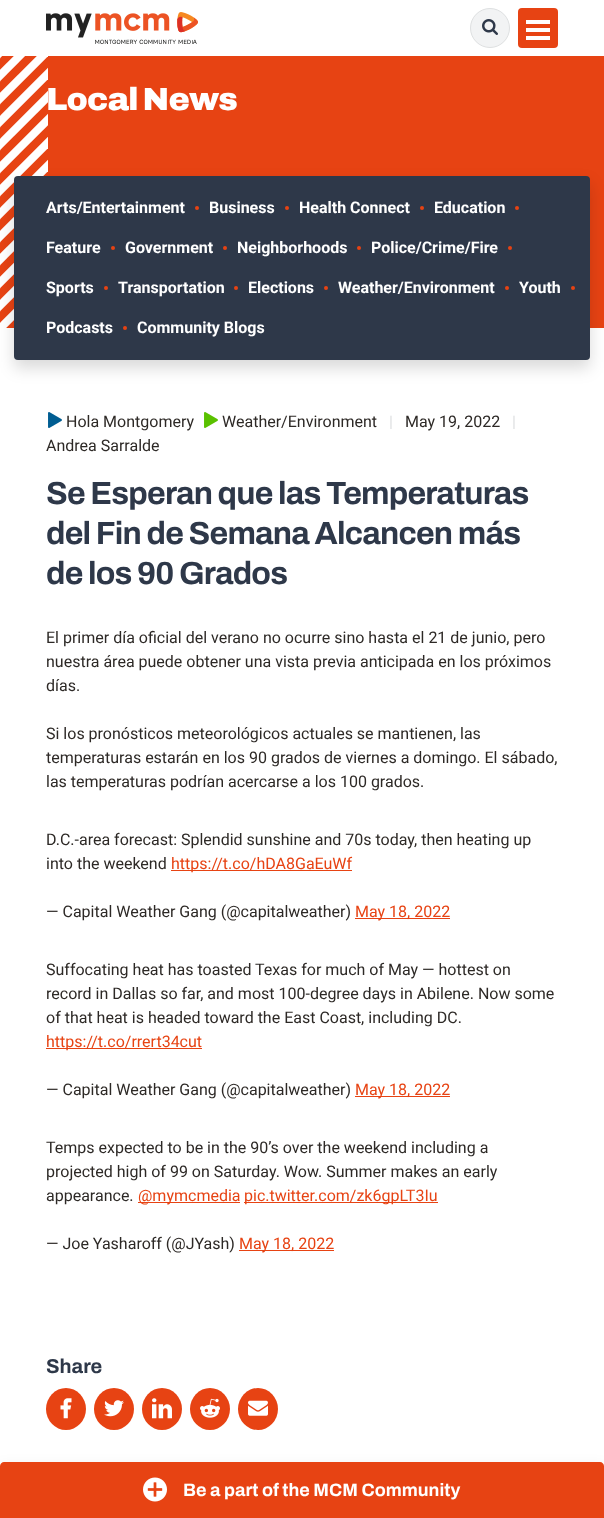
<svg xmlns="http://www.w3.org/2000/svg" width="604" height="1518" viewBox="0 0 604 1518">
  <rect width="100%" height="100%" fill="#fff"/>
  <image x="46" y="12" width="152" height="32" href="img/1.png"/>
  <rect x="518" y="8" width="40" height="40" rx="4" fill="#e74313"/>
  <path d="M526 28h24v4H526z" fill="#fff"/>
  <path d="M526 20h24v4H526z" fill="#fff"/>
  <path d="M526 36h24v4H526z" fill="#fff"/>
  <circle cx="490" cy="28" r="19.5" fill="#f2f3f4" stroke="#dee0e1"/>
  <image x="482" y="19" width="16" height="16" href="img/2.png"/>
  <path d="M0 56h604v272H0z" fill="#e74313"/>
  <image x="0" y="56" width="48" height="272" href="img/3.png"/>
  <rect x="14" y="184" width="576" height="184" rx="4" fill="#00000026" filter="blur(8px)"/>
  <rect x="14" y="176" width="576" height="184" rx="4" fill="#2e3849"/>
  <circle cx="197" cy="208" r="2" fill="#e74313"/>
  <circle cx="287" cy="208" r="2" fill="#e74313"/>
  <circle cx="422" cy="208" r="2" fill="#e74313"/>
  <circle cx="517" cy="208" r="2" fill="#e74313"/>
  <circle cx="113" cy="248" r="2" fill="#e74313"/>
  <circle cx="225" cy="248" r="2" fill="#e74313"/>
  <circle cx="359" cy="248" r="2" fill="#e74313"/>
  <circle cx="510" cy="248" r="2" fill="#e74313"/>
  <circle cx="106" cy="288" r="2" fill="#e74313"/>
  <circle cx="236" cy="288" r="2" fill="#e74313"/>
  <circle cx="326" cy="288" r="2" fill="#e74313"/>
  <circle cx="507" cy="288" r="2" fill="#e74313"/>
  <circle cx="573" cy="288" r="2" fill="#e74313"/>
  <circle cx="125" cy="328" r="2" fill="#e74313"/>
  <image x="48" y="412" width="14" height="16" href="img/4.png"/>
  <image x="204" y="412" width="14" height="16" href="img/5.png"/>
  <path d="M171 870h181v1H171z" fill="#e74313"/>
  <path d="M355 918h95v1H355z" fill="#e74313"/>
  <path d="M46 1048h156v1H46z" fill="#e74313"/>
  <path d="M355 1096h95v1H355z" fill="#e74313"/>
  <path d="M138 1202h102v1H138z" fill="#e74313"/>
  <path d="M244 1202h194v1H244z" fill="#e74313"/>
  <path d="M239 1250h95v1H239z" fill="#e74313"/>
  <ellipse cx="66" cy="1409" rx="20" ry="21" fill="#e74313"/>
  <image x="60" y="1398" width="12" height="21" href="img/6.png"/>
  <ellipse cx="114" cy="1409" rx="20" ry="21" fill="#e74313"/>
  <image x="104" y="1400" width="20" height="17" href="img/7.png"/>
  <ellipse cx="162" cy="1409" rx="20" ry="21" fill="#e74313"/>
  <image x="152" y="1398" width="20" height="21" href="img/8.png"/>
  <ellipse cx="210" cy="1409" rx="20" ry="21" fill="#e74313"/>
  <image x="200" y="1398" width="20" height="20" href="img/9.png"/>
  <ellipse cx="258" cy="1409" rx="20" ry="21" fill="#e74313"/>
  <image x="248" y="1400" width="20" height="16" href="img/10.png"/>
  <rect y="1470" width="604" height="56" rx="4" fill="#00000026" filter="blur(8px)"/>
  <path d="M4 1462H600C602 1462 604 1464 604 1466V1518H0V1466C0 1464 2 1462 4 1462Z" fill="#e74313"/>
  <image x="143" y="1477" width="24" height="25" href="img/11.png"/>
  <text x="46" y="110" font-family="Archivo" font-size="32" font-weight="900" letter-spacing="-0.8" fill="#fff">Local News</text>
  <g font-family="Roboto" font-size="16" font-weight="bold" fill="#fff">
    <text x="46" y="213">Arts/Entertainment</text>
    <text x="209" y="213">Business</text>
    <text x="299" y="213">Health Connect</text>
    <text x="434" y="213">Education</text>
    <text x="46" y="253">Feature</text>
    <text x="125" y="253">Government</text>
    <text x="237" y="253">Neighborhoods</text>
    <text x="371" y="253">Police/Crime/Fire</text>
    <text x="46" y="293">Sports</text>
    <text x="118" y="293">Transportation</text>
    <text x="248" y="293">Elections</text>
    <text x="338" y="293">Weather/Environment</text>
    <text x="519" y="293">Youth</text>
    <text x="46" y="333">Podcasts</text>
    <text x="137" y="333">Community Blogs</text>
  </g>
  <g font-family="Roboto" font-size="16" fill="#2d2926">
    <text x="66" y="427">Hola Montgomery</text>
    <text x="222" y="427">Weather/Environment</text>
  </g>
  <text x="389" y="427" font-family="Roboto" font-size="16" fill="#dee0e1">|</text>
  <text x="405" y="427" font-family="Roboto" font-size="16" fill="#2d2926">May 19, 2022</text>
  <text x="512" y="427" font-family="Roboto" font-size="16" fill="#dee0e1">|</text>
  <text x="46" y="451" font-family="Roboto" font-size="16" fill="#2d2926">Andrea Sarralde</text>
  <g font-family="Archivo" font-size="32" font-weight="bold" letter-spacing="-0.8" fill="#2e3849">
    <text x="46" y="504">Se Esperan que las Temperaturas</text>
    <text x="46" y="544">del Fin de Semana Alcancen más</text>
    <text x="46" y="584">de los 90 Grados</text>
  </g>
  <g font-family="Roboto" font-size="16" fill="#2d2926">
    <text x="46" y="643">El primer día oficial del verano no ocurre sino hasta el 21 de junio, pero</text>
    <text x="46" y="667">nuestra área puede obtener una vista previa anticipada en los próximos</text>
    <text x="46" y="691">días.</text>
    <text x="46" y="739">Si los pronósticos meteorológicos actuales se mantienen, las</text>
    <text x="46" y="763">temperaturas estarán en los 90 grados de viernes a domingo. El sábado,</text>
    <text x="46" y="787">las temperaturas podrían acercarse a los 100 grados.</text>
    <text x="46" y="845">D.C.-area forecast: Splendid sunshine and 70s today, then heating up</text>
    <text x="46" y="869">into the weekend</text>
  </g>
  <text x="171" y="869" font-family="Roboto" font-size="16" fill="#e74313">https://t.co/hDA8GaEuWf</text>
  <text x="46" y="917" font-family="Roboto" font-size="16" fill="#2d2926">— Capital Weather Gang (@capitalweather)</text>
  <text x="355" y="917" font-family="Roboto" font-size="16" fill="#e74313">May 18, 2022</text>
  <g font-family="Roboto" font-size="16" fill="#2d2926">
    <text x="46" y="975">Suffocating heat has toasted Texas for much of May — hottest on</text>
    <text x="46" y="999">record in Dallas so far, and most 100-degree days in Abilene. Now some</text>
    <text x="46" y="1023">of that heat is headed toward the East Coast, including DC.</text>
  </g>
  <text x="46" y="1047" font-family="Roboto" font-size="16" fill="#e74313">https://t.co/rrert34cut</text>
  <text x="46" y="1095" font-family="Roboto" font-size="16" fill="#2d2926">— Capital Weather Gang (@capitalweather)</text>
  <text x="355" y="1095" font-family="Roboto" font-size="16" fill="#e74313">May 18, 2022</text>
  <g font-family="Roboto" font-size="16" fill="#2d2926">
    <text x="46" y="1153">Temps expected to be in the 90’s over the weekend including a</text>
    <text x="46" y="1177">projected high of 99 on Saturday. Wow. Summer makes an early</text>
    <text x="46" y="1201">appearance.</text>
  </g>
  <g font-family="Roboto" font-size="16" fill="#e74313">
    <text x="138" y="1201">@mymcmedia</text>
    <text x="244" y="1201">pic.twitter.com/zk6gpLT3Iu</text>
  </g>
  <text x="46" y="1249" font-family="Roboto" font-size="16" fill="#2d2926">— Joe Yasharoff (@JYash)</text>
  <text x="239" y="1249" font-family="Roboto" font-size="16" fill="#e74313">May 18, 2022</text>
  <text x="46" y="1373" font-family="Archivo" font-size="20" font-weight="bold" fill="#2e3849">Share</text>
  <text x="183" y="1496" font-family="Archivo" font-size="18" font-weight="bold" fill="#fff">Be a part of the MCM Community</text>
</svg>
